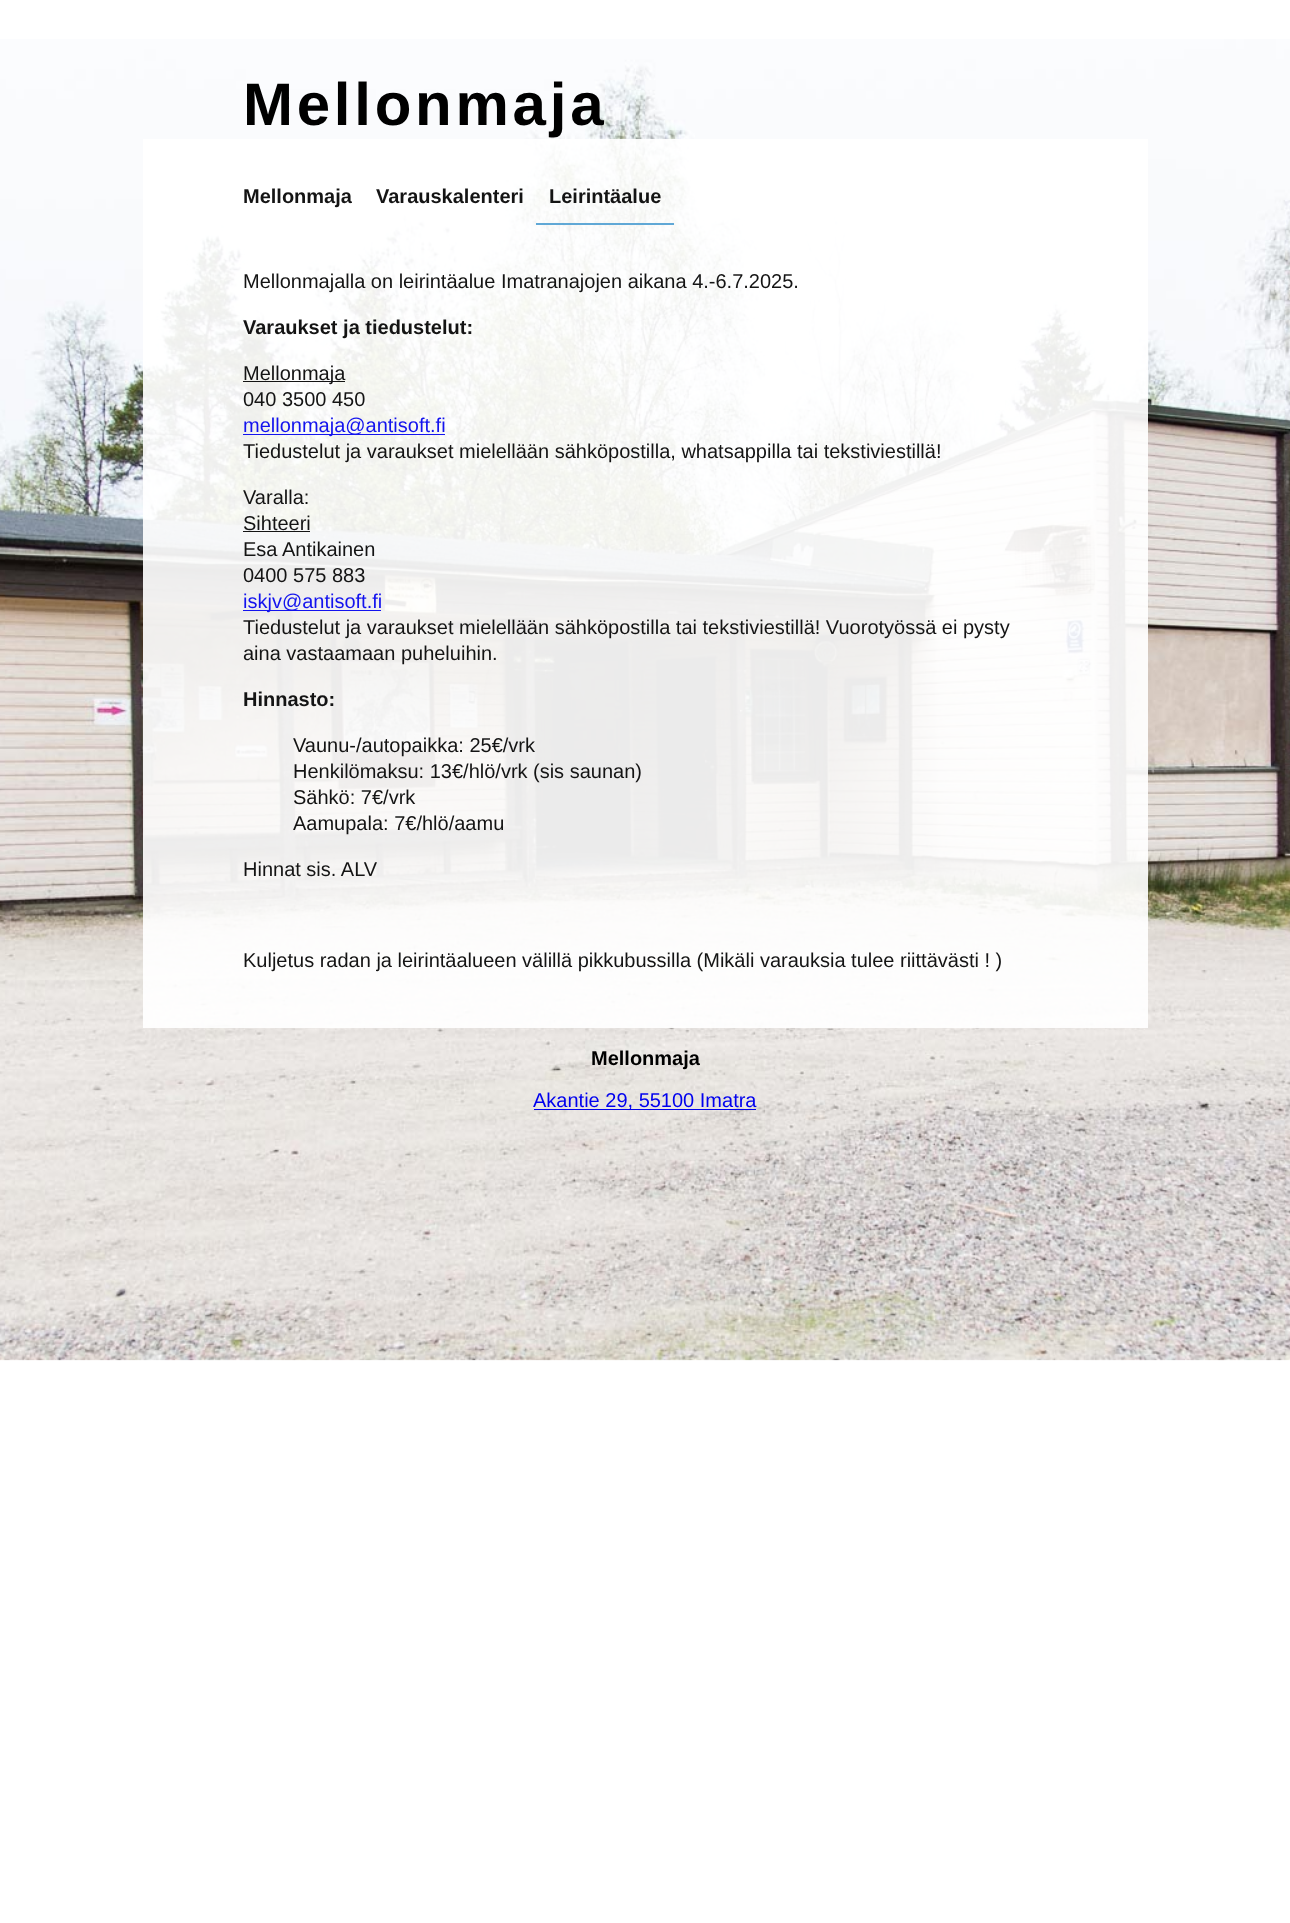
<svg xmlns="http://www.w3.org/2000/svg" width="1290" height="1923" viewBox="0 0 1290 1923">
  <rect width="100%" height="100%" fill="#fff"/>
  <image x="0" y="39" width="1290" height="1322" href="img/1.png"/>
  <path d="M143 139h1005v889H143z" fill="#ffffffeb"/>
  <path d="M536 223h138v2H536z" fill="#52a1d2eb"/>
  <path d="M243 381h102v1H243z" fill="#000000eb"/>
  <path d="M243 434h202v1H243z" fill="#0000eeeb"/>
  <path d="M243 531h67v1H243z" fill="#141414"/>
  <path d="M243 610h138v1H243z" fill="#0000eeeb"/>
  <path d="M534 1109h222v1H534z" fill="#00e"/>
  <text x="243" y="125" font-family="Liberation Sans" font-size="60" font-weight="bold" letter-spacing="3.75" fill="#000">Mellonmaja</text>
  <g font-family="Liberation Sans" font-size="20" font-weight="bold" fill="#141414">
    <text x="243" y="203">Mellonmaja</text>
    <text x="376" y="203">Varauskalenteri</text>
    <text x="549" y="203">Leirintäalue</text>
  </g>
  <text x="243" y="288" font-family="Liberation Sans" font-size="20" fill="#141414">Mellonmajalla on leirintäalue Imatranajojen aikana 4.-6.7.2025.</text>
  <text x="243" y="334" font-family="Liberation Sans" font-size="20" font-weight="bold" fill="#141414">Varaukset ja tiedustelut:</text>
  <g font-family="Liberation Sans" font-size="20" fill="#141414">
    <text x="243" y="380">Mellonmaja</text>
    <text x="243" y="406">040 3500 450</text>
  </g>
  <text x="243" y="432" font-family="Liberation Sans" font-size="20" fill="#1313ee">mellonmaja@antisoft.fi</text>
  <g font-family="Liberation Sans" font-size="20" fill="#141414">
    <text x="243" y="458">Tiedustelut ja varaukset mielellään sähköpostilla, whatsappilla tai tekstiviestillä!</text>
    <text x="243" y="504">Varalla:</text>
    <text x="243" y="530">Sihteeri</text>
    <text x="243" y="556">Esa Antikainen</text>
    <text x="243" y="582">0400 575 883</text>
  </g>
  <text x="243" y="608" font-family="Liberation Sans" font-size="20" fill="#1313ee">iskjv@antisoft.fi</text>
  <g font-family="Liberation Sans" font-size="20" fill="#141414">
    <text x="243" y="634">Tiedustelut ja varaukset mielellään sähköpostilla tai tekstiviestillä! Vuorotyössä ei pysty</text>
    <text x="243" y="660">aina vastaamaan puheluihin.</text>
  </g>
  <text x="243" y="706" font-family="Liberation Sans" font-size="20" font-weight="bold" fill="#141414">Hinnasto:</text>
  <g font-family="Liberation Sans" font-size="20" fill="#141414">
    <text x="293" y="752">Vaunu-/autopaikka: 25€/vrk</text>
    <text x="293" y="778">Henkilömaksu: 13€/hlö/vrk</text>
    <text x="533" y="778">(sis saunan)</text>
    <text x="293" y="804">Sähkö: 7€/vrk</text>
    <text x="293" y="830">Aamupala: 7€/hlö/aamu</text>
    <text x="243" y="876">Hinnat sis. ALV</text>
    <text x="243" y="967">Kuljetus radan ja leirintäalueen välillä pikkubussilla (Mikäli varauksia tulee riittävästi ! )</text>
  </g>
  <text x="591" y="1065" font-family="Liberation Sans" font-size="20" font-weight="bold" fill="#000">Mellonmaja</text>
  <text x="533" y="1107" font-family="Liberation Sans" font-size="20" fill="#00e">Akantie 29, 55100 Imatra</text>
</svg>
